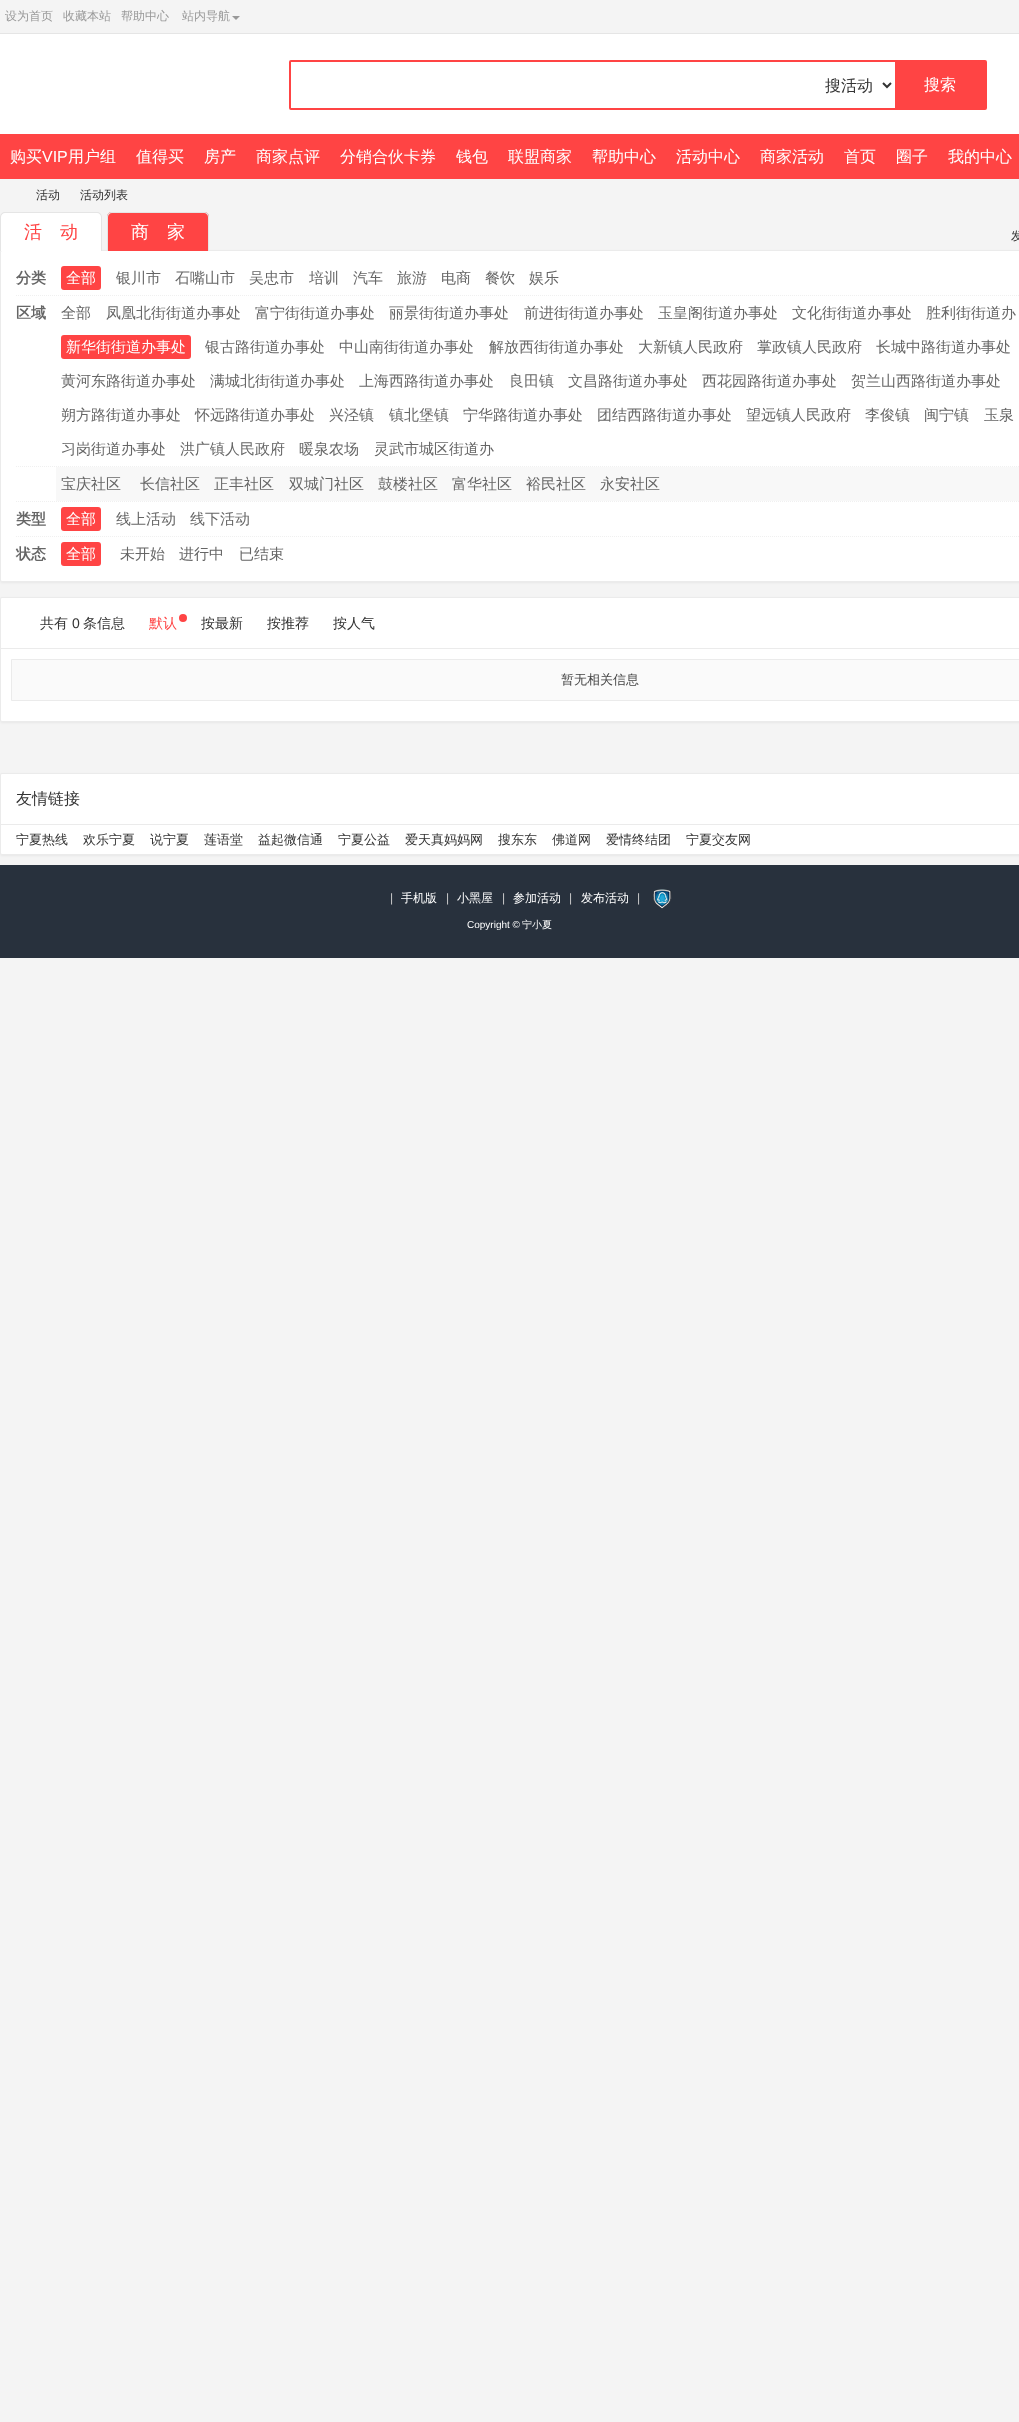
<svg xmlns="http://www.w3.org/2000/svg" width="1019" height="2422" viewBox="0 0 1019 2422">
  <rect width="100%" height="100%" fill="#f4f4f4"/>
  <path d="M0 33h1019v1H0z" fill="#e5e5e5"/>
  <path d="M232 16H240L236 20Z" fill="#999"/>
  <path d="M0 34h1019v100H0z" fill="#fff"/>
  <rect x="290" y="61" width="696" height="48" rx="1" fill="none" stroke="#f44" stroke-width="2"/>
  <path d="M883 83L887 87L891 83" fill="none" stroke="#333" stroke-width="2"/>
  <path d="M895 62h90v46H895z" fill="#f44"/>
  <path d="M0 134h1019v45H0z" fill="#f44"/>
  <rect y="251" width="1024" height="332" rx="2" fill="#0000000d" filter="blur(1px)"/>
  <rect x="0.5" y="250.5" width="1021" height="331" rx="1.5" fill="#fff" stroke="#ebebeb"/>
  <path d="M5 212H97C100 212 102 214 102 217V251H0V217C0 214 2 212 5 212Z" fill="#fff"/>
  <path d="M5 212H97C100 212 102 214 102 217V251H0V217C0 214 2 212 5 212ZM5 213H97C99 213 101 215 101 217V251H1V217C1 215 3 213 5 213Z" fill="#e5e5e5" fill-rule="evenodd"/>
  <path d="M112 212H204C207 212 209 214 209 217V251H107V217C107 214 109 212 112 212Z" fill="#f44"/>
  <path d="M112 212H204C207 212 209 214 209 217V251H107V217C107 214 109 212 112 212ZM112 213H204C206 213 208 215 208 217V251H108V217C108 215 110 213 112 213Z" fill="#e5e5e5" fill-rule="evenodd"/>
  <path d="M16 295.5H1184" fill="none" stroke="#f0f0f0" stroke-dasharray="1 1"/>
  <rect x="61" y="266" width="40" height="24" rx="3" fill="#f44"/>
  <path d="M16 466.5H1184" fill="none" stroke="#f0f0f0" stroke-dasharray="1 1"/>
  <rect x="61" y="335" width="130" height="24" rx="3" fill="#f44"/>
  <path d="M16 501.5H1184" fill="none" stroke="#f0f0f0" stroke-dasharray="1 1"/>
  <path d="M56 467h963v34H56z" fill="#f8f8f8"/>
  <path d="M16 536.5H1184" fill="none" stroke="#f0f0f0" stroke-dasharray="1 1"/>
  <rect x="61" y="507" width="40" height="24" rx="3" fill="#f44"/>
  <rect x="61" y="542" width="40" height="24" rx="3" fill="#f44"/>
  <rect y="598" width="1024" height="125" rx="2" fill="#0000000d" filter="blur(1px)"/>
  <rect x="0.5" y="597.5" width="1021" height="124" rx="1.5" fill="#fff" stroke="#ebebeb"/>
  <path d="M1 648h1018v1H1z" fill="#ebebeb"/>
  <circle cx="183" cy="618" r="4" fill="#f44"/>
  <path d="M11.5 659.5h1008v41H11.5z" fill="#fafafa" stroke="#ebebeb"/>
  <rect y="774" width="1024" height="82" rx="2" fill="#0000000d" filter="blur(1px)"/>
  <rect x="0.5" y="773.5" width="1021" height="81" rx="1.5" fill="#fff" stroke="#ebebeb"/>
  <path d="M1 824h1018v1H1z" fill="#ebebeb"/>
  <path d="M0 865h1019v93H0z" fill="#28313d"/>
  <image x="653" y="889" width="19" height="20" href="img/1.png"/>
  <g font-family="WenQuanYi Zen Hei" font-size="12" font-weight="500" fill="#999">
    <text x="5" y="20">设为首页</text>
    <text x="63" y="20">收藏本站</text>
    <text x="121" y="20">帮助中心</text>
    <text x="182" y="20">站内导航</text>
  </g>
  <text x="825" y="91" font-family="WenQuanYi Zen Hei" font-size="16" font-weight="500" fill="#333">搜活动</text>
  <g font-family="WenQuanYi Zen Hei" font-size="16" font-weight="500" fill="#fff">
    <text x="924" y="90">搜索</text>
    <text x="10" y="162">购买</text>
  </g>
  <text x="42" y="162" font-family="Liberation Sans" font-size="16" fill="#fff">VIP</text>
  <g font-family="WenQuanYi Zen Hei" font-size="16" font-weight="500" fill="#fff">
    <text x="68" y="162">用户组</text>
    <text x="136" y="162">值得买</text>
    <text x="204" y="162">房产</text>
    <text x="256" y="162">商家点评</text>
    <text x="340" y="162">分销合伙卡券</text>
    <text x="456" y="162">钱包</text>
    <text x="508" y="162">联盟商家</text>
    <text x="592" y="162">帮助中心</text>
    <text x="676" y="162">活动中心</text>
    <text x="760" y="162">商家活动</text>
    <text x="844" y="162">首页</text>
    <text x="896" y="162">圈子</text>
    <text x="948" y="162">我的中心</text>
  </g>
  <g font-family="WenQuanYi Zen Hei" font-size="12" font-weight="500" fill="#333">
    <text x="36" y="199">活动</text>
    <text x="80" y="199">活动列表</text>
  </g>
  <text x="24" y="238" font-family="WenQuanYi Zen Hei" font-size="18" font-weight="500" fill="#f44">活　动</text>
  <text x="131" y="238" font-family="WenQuanYi Zen Hei" font-size="18" font-weight="500" fill="#fff">商　家</text>
  <text x="1011" y="240" font-family="WenQuanYi Zen Hei" font-size="12" font-weight="500" fill="#333">发</text>
  <text x="16" y="283" font-family="WenQuanYi Zen Hei" font-size="15" font-weight="bold" fill="#666">分类</text>
  <text x="66" y="283" font-family="WenQuanYi Zen Hei" font-size="15" font-weight="500" fill="#fff">全部</text>
  <g font-family="WenQuanYi Zen Hei" font-size="15" font-weight="500" fill="#666">
    <text x="116" y="283">银川市</text>
    <text x="175" y="283">石嘴山市</text>
    <text x="249" y="283">吴忠市</text>
    <text x="309" y="283">培训</text>
    <text x="353" y="283">汽车</text>
    <text x="397" y="283">旅游</text>
    <text x="441" y="283">电商</text>
    <text x="485" y="283">餐饮</text>
    <text x="529" y="283">娱乐</text>
  </g>
  <text x="16" y="318" font-family="WenQuanYi Zen Hei" font-size="15" font-weight="bold" fill="#666">区域</text>
  <g font-family="WenQuanYi Zen Hei" font-size="15" font-weight="500" fill="#666">
    <text x="61" y="318">全部</text>
    <text x="106" y="318">凤凰北街街道办事处</text>
    <text x="255" y="318">富宁街街道办事处</text>
    <text x="389" y="318">丽景街街道办事处</text>
    <text x="524" y="318">前进街街道办事处</text>
    <text x="658" y="318">玉皇阁街道办事处</text>
    <text x="792" y="318">文化街街道办事处</text>
    <text x="926" y="318">胜利街街道办</text>
  </g>
  <text x="66" y="352" font-family="WenQuanYi Zen Hei" font-size="15" font-weight="500" fill="#fff">新华街街道办事处</text>
  <g font-family="WenQuanYi Zen Hei" font-size="15" font-weight="500" fill="#666">
    <text x="205" y="352">银古路街道办事处</text>
    <text x="339" y="352">中山南街街道办事处</text>
    <text x="489" y="352">解放西街街道办事处</text>
    <text x="638" y="352">大新镇人民政府</text>
    <text x="757" y="352">掌政镇人民政府</text>
    <text x="876" y="352">长城中路街道办事处</text>
    <text x="61" y="386">黄河东路街道办事处</text>
    <text x="210" y="386">满城北街街道办事处</text>
    <text x="359" y="386">上海西路街道办事处</text>
    <text x="509" y="386">良田镇</text>
    <text x="568" y="386">文昌路街道办事处</text>
    <text x="702" y="386">西花园路街道办事处</text>
    <text x="851" y="386">贺兰山西路街道办事处</text>
    <text x="61" y="420">朔方路街道办事处</text>
    <text x="195" y="420">怀远路街道办事处</text>
    <text x="329" y="420">兴泾镇</text>
    <text x="389" y="420">镇北堡镇</text>
    <text x="463" y="420">宁华路街道办事处</text>
    <text x="597" y="420">团结西路街道办事处</text>
    <text x="746" y="420">望远镇人民政府</text>
    <text x="865" y="420">李俊镇</text>
    <text x="924" y="420">闽宁镇</text>
    <text x="984" y="420">玉泉</text>
    <text x="61" y="454">习岗街道办事处</text>
    <text x="180" y="454">洪广镇人民政府</text>
    <text x="299" y="454">暖泉农场</text>
    <text x="374" y="454">灵武市城区街道办</text>
    <text x="61" y="489">宝庆社区</text>
    <text x="140" y="489">长信社区</text>
    <text x="214" y="489">正丰社区</text>
    <text x="289" y="489">双城门社区</text>
    <text x="378" y="489">鼓楼社区</text>
    <text x="452" y="489">富华社区</text>
    <text x="526" y="489">裕民社区</text>
    <text x="600" y="489">永安社区</text>
  </g>
  <text x="16" y="524" font-family="WenQuanYi Zen Hei" font-size="15" font-weight="bold" fill="#666">类型</text>
  <text x="66" y="524" font-family="WenQuanYi Zen Hei" font-size="15" font-weight="500" fill="#fff">全部</text>
  <g font-family="WenQuanYi Zen Hei" font-size="15" font-weight="500" fill="#666">
    <text x="116" y="524">线上活动</text>
    <text x="190" y="524">线下活动</text>
  </g>
  <text x="16" y="559" font-family="WenQuanYi Zen Hei" font-size="15" font-weight="bold" fill="#666">状态</text>
  <text x="66" y="559" font-family="WenQuanYi Zen Hei" font-size="15" font-weight="500" fill="#fff">全部</text>
  <g font-family="WenQuanYi Zen Hei" font-size="15" font-weight="500" fill="#666">
    <text x="120" y="559">未开始</text>
    <text x="179" y="559">进行中</text>
    <text x="239" y="559">已结束</text>
  </g>
  <text x="40" y="628" font-family="WenQuanYi Zen Hei" font-size="14" font-weight="500" fill="#333">共有</text>
  <text x="72" y="628" font-family="Liberation Sans" font-size="14" fill="#333">0</text>
  <text x="83" y="628" font-family="WenQuanYi Zen Hei" font-size="14" font-weight="500" fill="#333">条信息</text>
  <text x="149" y="628" font-family="WenQuanYi Zen Hei" font-size="14" font-weight="500" fill="#f44">默认</text>
  <g font-family="WenQuanYi Zen Hei" font-size="14" font-weight="500" fill="#333">
    <text x="201" y="628">按最新</text>
    <text x="267" y="628">按推荐</text>
    <text x="333" y="628">按人气</text>
  </g>
  <text x="561" y="684" font-family="WenQuanYi Zen Hei" font-size="13" font-weight="500" fill="#444">暂无相关信息</text>
  <text x="16" y="804" font-family="WenQuanYi Zen Hei" font-size="16" font-weight="500" fill="#333">友情链接</text>
  <g font-family="WenQuanYi Zen Hei" font-size="13" font-weight="500" fill="#333">
    <text x="16" y="844">宁夏热线</text>
    <text x="83" y="844">欢乐宁夏</text>
    <text x="150" y="844">说宁夏</text>
    <text x="204" y="844">莲语堂</text>
    <text x="258" y="844">益起微信通</text>
    <text x="338" y="844">宁夏公益</text>
    <text x="405" y="844">爱天真妈妈网</text>
    <text x="498" y="844">搜东东</text>
    <text x="552" y="844">佛道网</text>
    <text x="606" y="844">爱情终结团</text>
    <text x="686" y="844">宁夏交友网</text>
  </g>
  <text x="390" y="902" font-family="Liberation Sans" font-size="12" fill="#ccc">|</text>
  <text x="401" y="902" font-family="WenQuanYi Zen Hei" font-size="12" font-weight="500" fill="#fff">手机版</text>
  <text x="446" y="902" font-family="Liberation Sans" font-size="12" fill="#ccc">|</text>
  <text x="457" y="902" font-family="WenQuanYi Zen Hei" font-size="12" font-weight="500" fill="#fff">小黑屋</text>
  <text x="502" y="902" font-family="Liberation Sans" font-size="12" fill="#ccc">|</text>
  <text x="513" y="902" font-family="WenQuanYi Zen Hei" font-size="12" font-weight="500" fill="#fff">参加活动</text>
  <text x="569" y="902" font-family="Liberation Sans" font-size="12" fill="#ccc">|</text>
  <text x="581" y="902" font-family="WenQuanYi Zen Hei" font-size="12" font-weight="500" fill="#fff">发布活动</text>
  <text x="637" y="902" font-family="Liberation Sans" font-size="12" fill="#ccc">|</text>
  <text x="467" y="928" font-family="Liberation Sans" font-size="10" fill="#fff">Copyright ©</text>
  <text x="522" y="928" font-family="WenQuanYi Zen Hei" font-size="10" font-weight="500" fill="#fff">宁小夏</text>
</svg>
